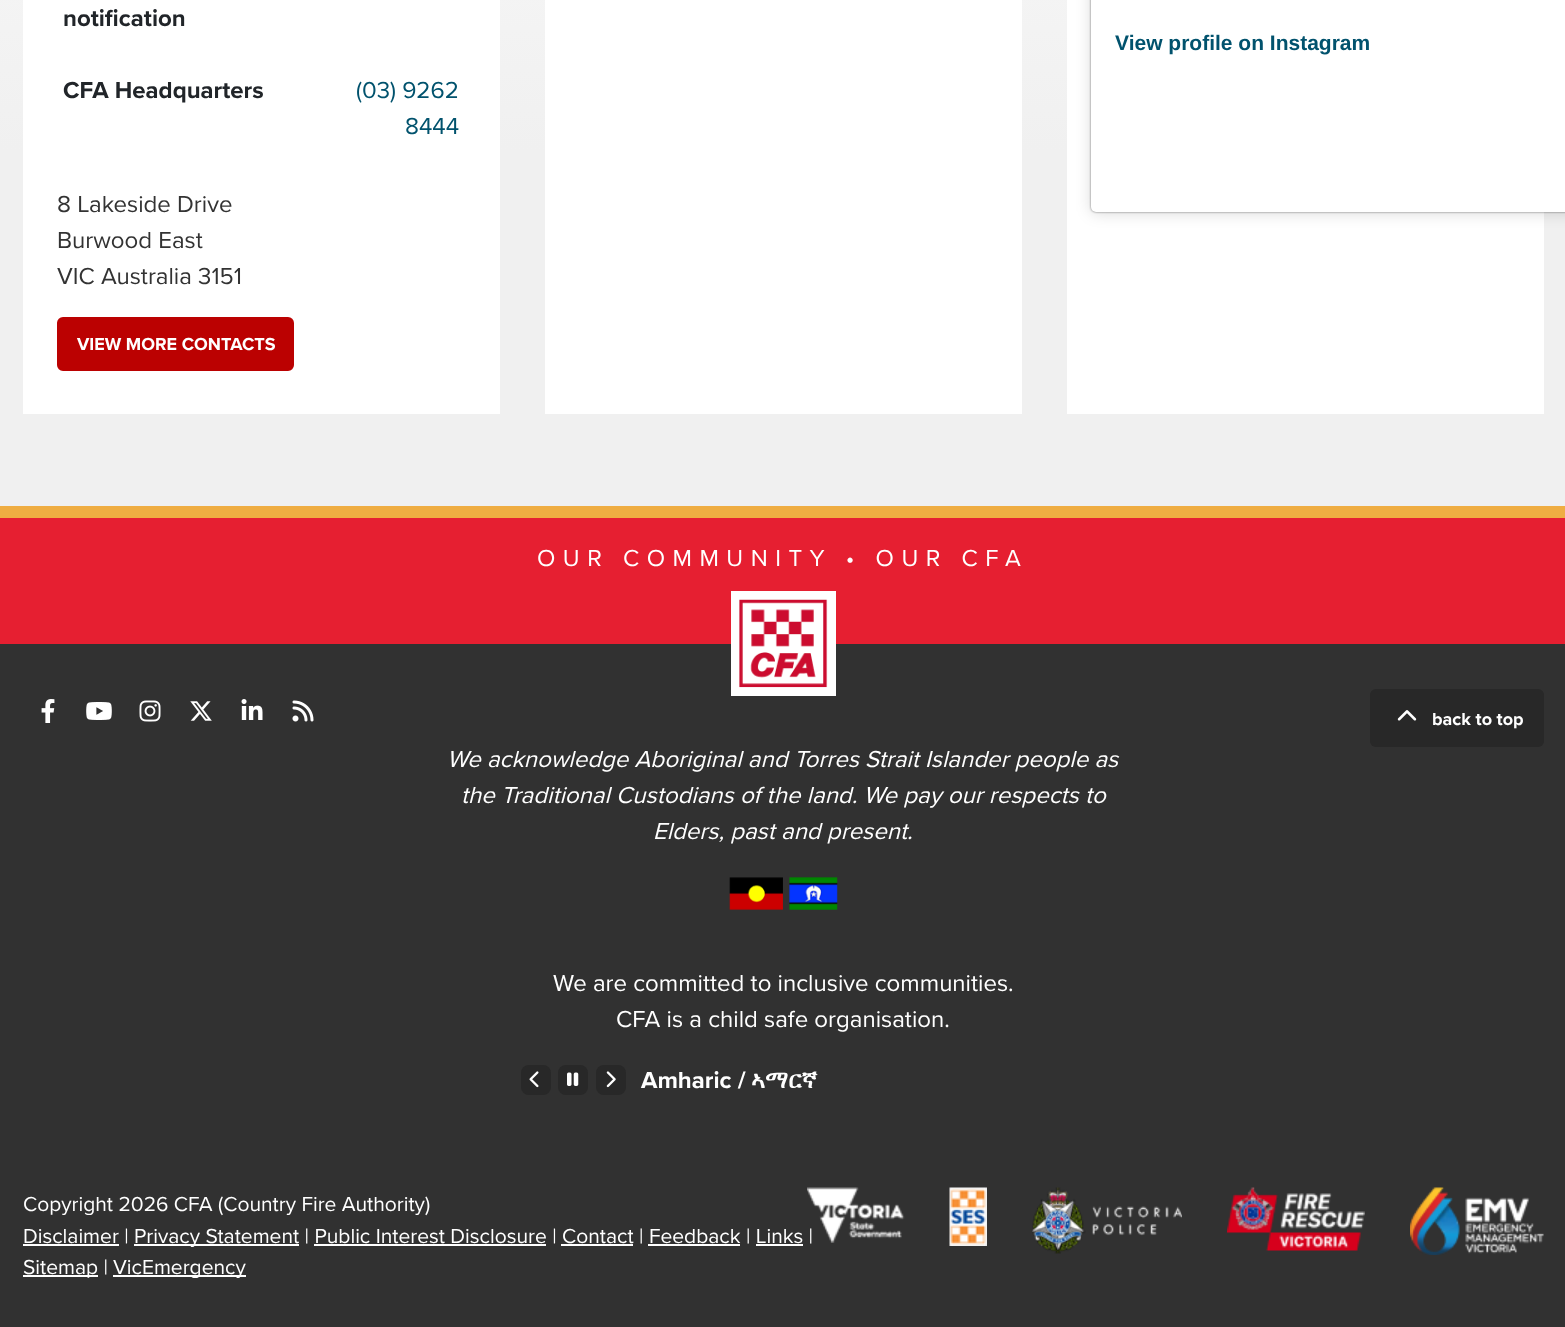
<svg xmlns="http://www.w3.org/2000/svg" width="1565" height="1327" viewBox="0 0 1565 1327">
  <defs>
    <linearGradient id="g1" gradientUnits="userSpaceOnUse" x1="783" y1="-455" x2="783" y2="506"><stop offset="0" stop-color="#fff"/><stop offset="0.63" stop-color="#f0f0f0"/></linearGradient>
  </defs>
  <rect width="100%" height="100%" fill="#fff"/>
  <path d="M0 0h1565v506H0z" fill="url(#g1)"/>
  <path d="M23 0h477v414H23z" fill="#fff"/>
  <rect x="58" y="318" width="235" height="52" rx="5" fill="#bb0101" stroke="#bb0101" stroke-width="2"/>
  <path d="M545 0h477v414H545z" fill="#fff"/>
  <path d="M1067 0h477v414H1067z" fill="#fff"/>
  <rect x="1091" y="-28" width="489" height="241" rx="5" fill="#00000026" filter="blur(7.5px)"/>
  <rect x="1091" y="-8" width="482" height="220" rx="5" fill="#00000080" filter="blur(1px)"/>
  <rect x="1091" y="-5" width="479" height="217" rx="5" fill="#fff"/>
  <path d="M0 518h1565v126H0z" fill="#e61f31"/>
  <path d="M0 506h1565v12H0z" fill="#efad42"/>
  <path d="M0 644h1565v683H0z" fill="#313131"/>
  <path d="M731 591h105v105H731z" fill="#fff"/>
  <image x="739" y="599" width="89" height="89" href="img/1.png"/>
  <image x="41" y="699" width="14" height="24" href="img/2.png"/>
  <image x="86" y="702" width="26" height="18" href="img/3.png"/>
  <image x="139" y="700" width="22" height="22" href="img/4.png"/>
  <image x="190" y="701" width="22" height="20" href="img/5.png"/>
  <image x="241" y="699" width="22" height="21" href="img/6.png"/>
  <image x="292" y="700" width="22" height="22" href="img/7.png"/>
  <rect x="1370" y="689" width="174" height="58" rx="6" fill="#282828"/>
  <image x="1397" y="710" width="20" height="11" href="img/8.png"/>
  <image x="729" y="877" width="109" height="33" href="img/9.png"/>
  <rect x="521" y="1065" width="30" height="30" rx="8" fill="#282828"/>
  <image x="529" y="1071" width="10" height="17" href="img/10.png"/>
  <rect x="596" y="1065" width="30" height="30" rx="8" fill="#282828"/>
  <image x="606" y="1071" width="10" height="17" href="img/11.png"/>
  <rect x="558" y="1065" width="30" height="30" rx="8" fill="#282828"/>
  <image x="567" y="1072" width="12" height="14" href="img/12.png"/>
  <path d="M23 1244h96v2H23z" fill="#fff"/>
  <path d="M134 1244h165v2H134z" fill="#fff"/>
  <path d="M314 1244h232v2H314z" fill="#fff"/>
  <path d="M561 1244h72v2H561z" fill="#fff"/>
  <path d="M648 1244h92v2H648z" fill="#fff"/>
  <path d="M756 1244h47v2H756z" fill="#fff"/>
  <path d="M23 1275h75v2H23z" fill="#fff"/>
  <path d="M113 1275h133v2H113z" fill="#fff"/>
  <image x="949" y="1187" width="38" height="59" href="img/14.png"/>
  <image x="1032" y="1187" width="150" height="67" href="img/15.png"/>
  <image x="1227" y="1187" width="138" height="64" href="img/16.png"/>
  <image x="1410" y="1187" width="134" height="68" href="img/17.png"/>
  <g font-family="Proxima Nova" font-size="24" font-weight="bold" fill="#212529">
    <text x="63" y="26">notification</text>
    <text x="63" y="98">CFA Headquarters</text>
  </g>
  <g font-family="Proxima Nova" font-size="24" fill="#01526d">
    <text x="356" y="98">(03) 9262</text>
    <text x="405" y="134">8444</text>
  </g>
  <g font-family="Proxima Nova" font-size="24" fill="#333">
    <text x="57" y="212">8 Lakeside Drive</text>
    <text x="57" y="248">Burwood East</text>
    <text x="57" y="284">VIC Australia 3151</text>
  </g>
  <text x="77" y="350" font-family="Proxima Nova" font-size="18" font-weight="bold" fill="#fff">VIEW MORE CONTACTS</text>
  <text x="1115" y="50" font-family="Liberation Sans" font-size="21" font-weight="bold" fill="#01526d">View profile on Instagram</text>
  <text x="537" y="566" font-family="Proxima Nova" font-size="24" letter-spacing="7.5" fill="#fff">OUR COMMUNITY • OUR CFA</text>
  <text x="1432" y="725" font-family="Proxima Nova" font-size="18" font-weight="bold" fill="#fff">back to top</text>
  <g font-family="Proxima Nova" font-size="24" font-style="italic" fill="#fff">
    <text x="447" y="767">We acknowledge Aboriginal and Torres Strait Islander people as</text>
    <text x="461" y="803">the Traditional Custodians of the land. We pay our respects to</text>
    <text x="653" y="839">Elders, past and present.</text>
  </g>
  <g font-family="Proxima Nova" font-size="24" fill="#fff">
    <text x="553" y="991">We are committed to inclusive communities.</text>
    <text x="616" y="1027">CFA is a child safe organisation.</text>
  </g>
  <text x="641" y="1088" font-family="Proxima Nova" font-size="24" font-weight="bold" fill="#fff">Amharic /</text>
  <text x="751" y="1088" font-family="FreeSerif" font-size="24" font-weight="bold" fill="#fff">ኣማርኛ</text>
  <g font-family="Proxima Nova" font-size="21" fill="#fff">
    <text x="23" y="1211">Copyright 2026 CFA (Country Fire Authority)</text>
    <text x="23" y="1243">Disclaimer |</text>
    <text x="134" y="1243">Privacy Statement | Public Interest Disclosure | Contact | Feedback | Links |</text>
    <text x="23" y="1274">Sitemap |</text>
    <text x="113" y="1274">VicEmergency</text>
  </g>
  <image x="807" y="1187" width="98" height="56" href="img/13.png"/>
</svg>
